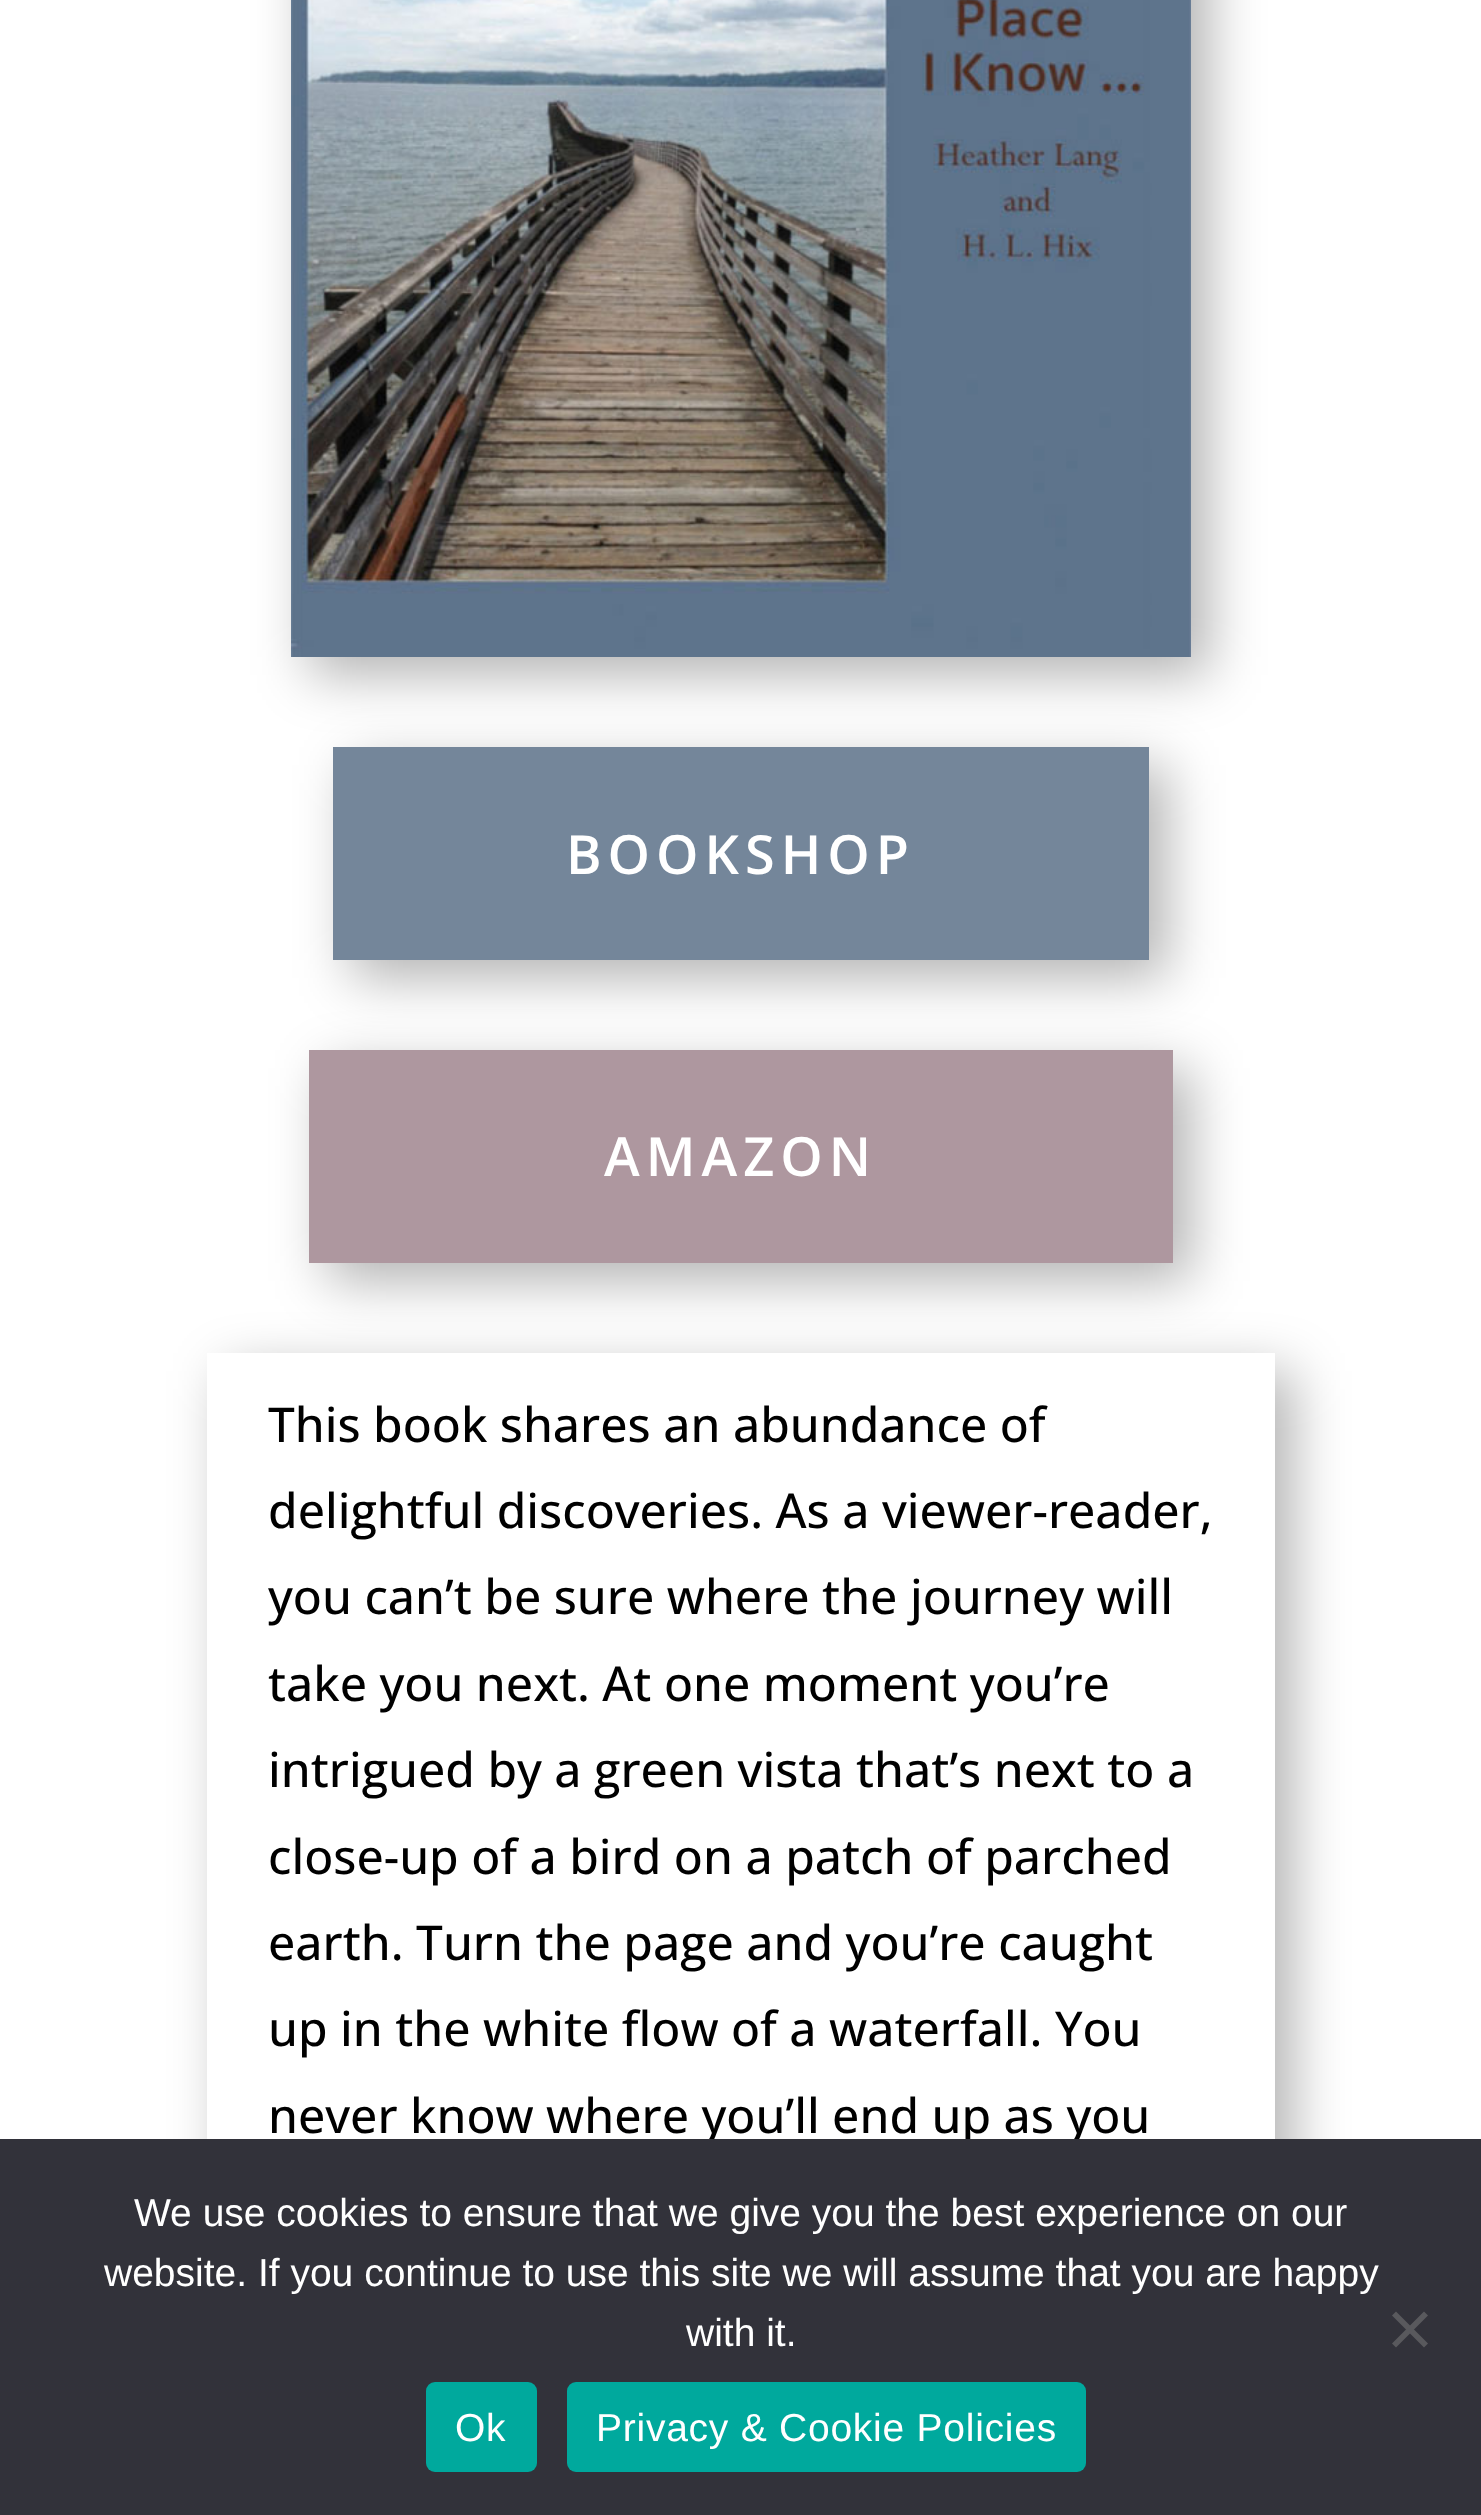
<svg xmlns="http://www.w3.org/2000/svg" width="1481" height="2515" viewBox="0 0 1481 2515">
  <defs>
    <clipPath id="clip1"><path d="M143 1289H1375V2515H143ZM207 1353H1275V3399H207Z" clip-rule="evenodd"/></clipPath>
  </defs>
  <rect width="100%" height="100%" fill="#fff"/>
  <path d="M309 -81h900v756H309z" fill="#0000004d" filter="blur(27px)"/>
  <image x="291" y="0" width="900" height="657" href="img/1.png"/>
  <path d="M351 765h816v213H351z" fill="#0000004d" filter="blur(27px)"/>
  <path d="M333 747h816v213H333z" fill="#74869a"/>
  <path d="M327 1068h864v213H327z" fill="#0000004d" filter="blur(27px)"/>
  <path d="M309 1050h864v213H309z" fill="#ae979f"/>
  <g clip-path="url(#clip1)">
    <path d="M225 1371h1068v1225H225z" fill="#0000004d" filter="blur(27px)"/>
  </g>
  <g font-family="Open Sans" font-size="54" font-weight="600" letter-spacing="6" fill="#fff">
    <text x="566" y="874">BOOKSHOP</text>
    <text x="604" y="1176">AMAZON</text>
  </g>
  <g font-family="Open Sans" font-size="48" font-weight="500" fill="#000">
    <text x="268" y="1442">This book shares an abundance of</text>
    <text x="268" y="1528">delightful discoveries. As a viewer-reader,</text>
    <text x="268" y="1614">you can’t be sure where the journey will</text>
    <text x="268" y="1701">take you next. At one moment you’re</text>
    <text x="268" y="1787">intrigued by a green vista that’s next to a</text>
    <text x="268" y="1874">close-up of a bird on a patch of parched</text>
    <text x="268" y="1960">earth. Turn the page and you’re caught</text>
    <text x="268" y="2046">up in the white flow of a waterfall. You</text>
    <text x="268" y="2133">never know where you’ll end up as you</text>
  </g>
  <path d="M0 2139h1481v376H0z" fill="#32323a"/>
  <g font-family="Liberation Sans" font-size="39" fill="#fff">
    <text x="134" y="2226">We use cookies to ensure that we give you the best experience on our</text>
    <text x="104" y="2286">website. If you continue to use this site we will assume that you are happy</text>
    <text x="686" y="2346">with it.</text>
  </g>
  <path d="M1424 2311.5L1428 2315.5L1396 2347.5L1392 2343.5Z" fill="#59595d"/>
  <path d="M1392 2315.5L1396 2311.5L1428 2343.5L1424 2347.5Z" fill="#59595d"/>
  <rect x="426" y="2382" width="111" height="90" rx="9" fill="#00a99d"/>
  <text x="455" y="2441" font-family="Liberation Sans" font-size="39" letter-spacing="0.75" fill="#fff">Ok</text>
  <rect x="567" y="2382" width="519" height="90" rx="9" fill="#00a99d"/>
  <text x="596" y="2441" font-family="Liberation Sans" font-size="39" letter-spacing="0.75" fill="#fff">Privacy &amp; Cookie Policies</text>
</svg>
